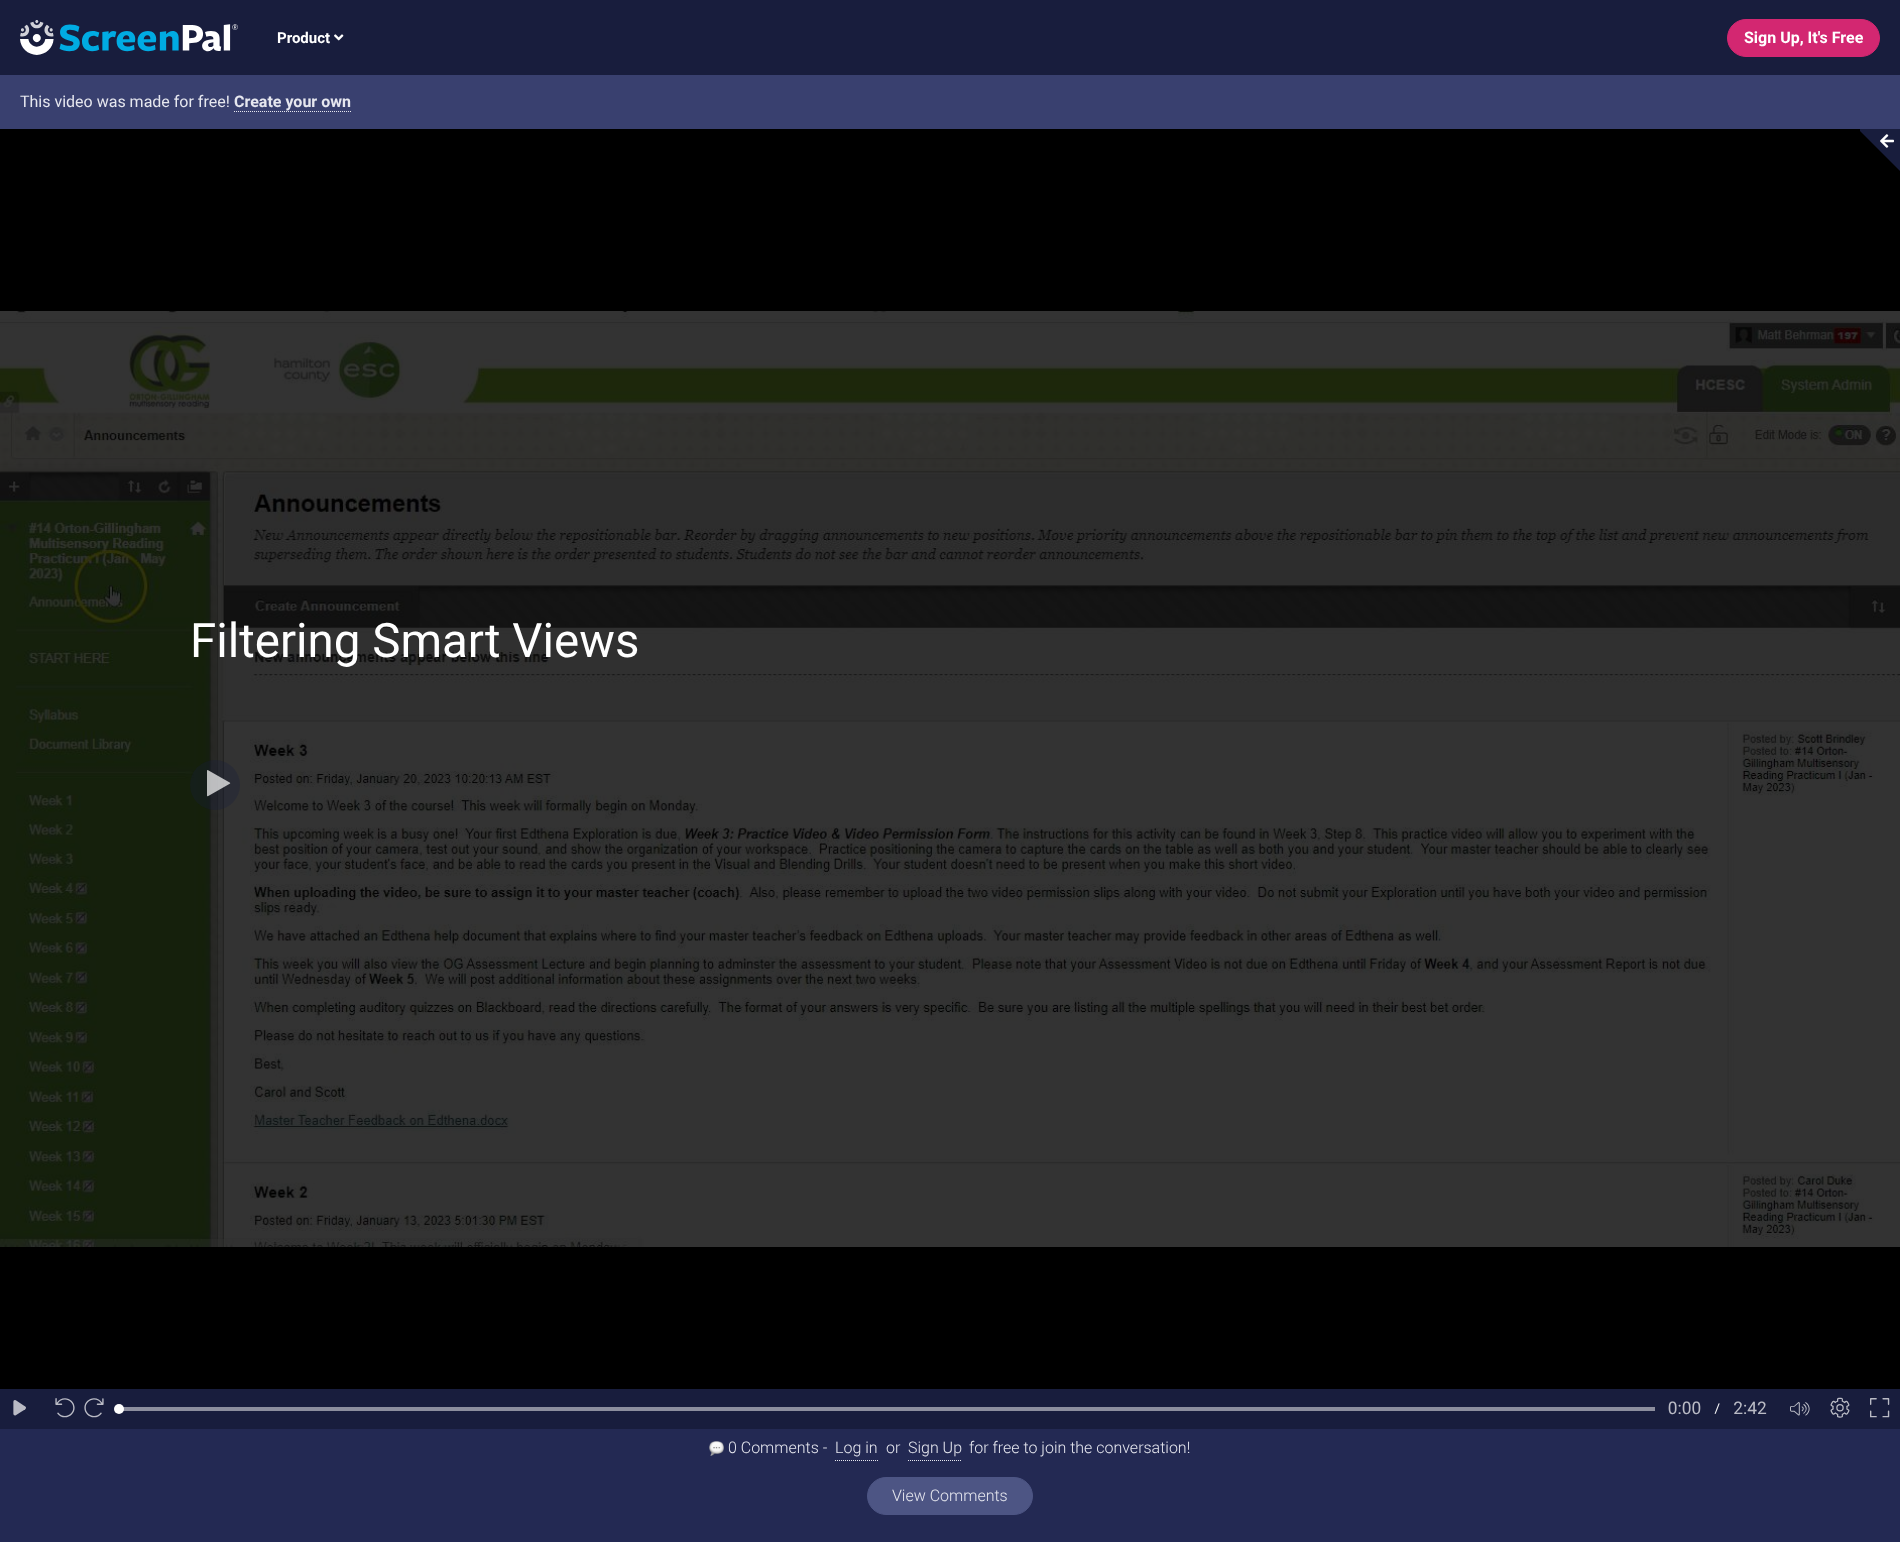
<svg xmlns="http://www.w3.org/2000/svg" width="1900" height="1542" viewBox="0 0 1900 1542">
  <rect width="100%" height="100%" fill="#232953"/>
  <path d="M0 0h1900v75H0z" fill="#181d3d"/>
  <image x="20" y="20" width="218" height="35" href="img/1.png"/>
  <image x="334" y="34" width="10" height="7" href="img/2.png"/>
  <rect x="1727.5" y="19.5" width="152" height="37" rx="18.5" fill="#d32771" stroke="#d32771"/>
  <path d="M0 75h1900v54H0z" fill="#39406f"/>
  <path d="M234 111.5H351" fill="none" stroke="#e6e7ef" stroke-dasharray="1 1"/>
  <image x="0" y="129" width="1900" height="1300" href="img/3.png"/>
  <path d="M1900 129V171L1860 131V129Z" fill="#181d3d"/>
  <image x="1880" y="134" width="14" height="14" href="img/4.png"/>
  <image x="709" y="1441" width="15" height="15" href="img/5.png"/>
  <path d="M835 1460.5H878" fill="none" stroke="#e6e7ef" stroke-dasharray="1 1"/>
  <path d="M908 1460.5H962" fill="none" stroke="#e6e7ef" stroke-dasharray="1 1"/>
  <rect x="867.5" y="1477.5" width="165" height="37" rx="18.5" fill="#4d5584" stroke="#4d5584"/>
  <text x="277" y="43" font-family="Roboto" font-size="15" font-weight="bold" fill="#fff">Product</text>
  <text x="1744" y="43" font-family="Roboto" font-size="16" font-weight="bold" fill="#fff">Sign Up, It's Free</text>
  <text x="20" y="107" font-family="Roboto" font-size="16" fill="#e6e7ef">This video was made for free!</text>
  <text x="234" y="107" font-family="Roboto" font-size="16" font-weight="bold" fill="#e6e7ef">Create your own</text>
  <g font-family="Roboto" font-size="16" font-weight="300" fill="#e6e7ef">
    <text x="728" y="1453">0 Comments -</text>
    <text x="835" y="1453">Log in</text>
    <text x="886" y="1453">or</text>
    <text x="908" y="1453">Sign Up</text>
    <text x="969" y="1453">for free to join the conversation!</text>
    <text x="892" y="1501">View Comments</text>
  </g>
</svg>
